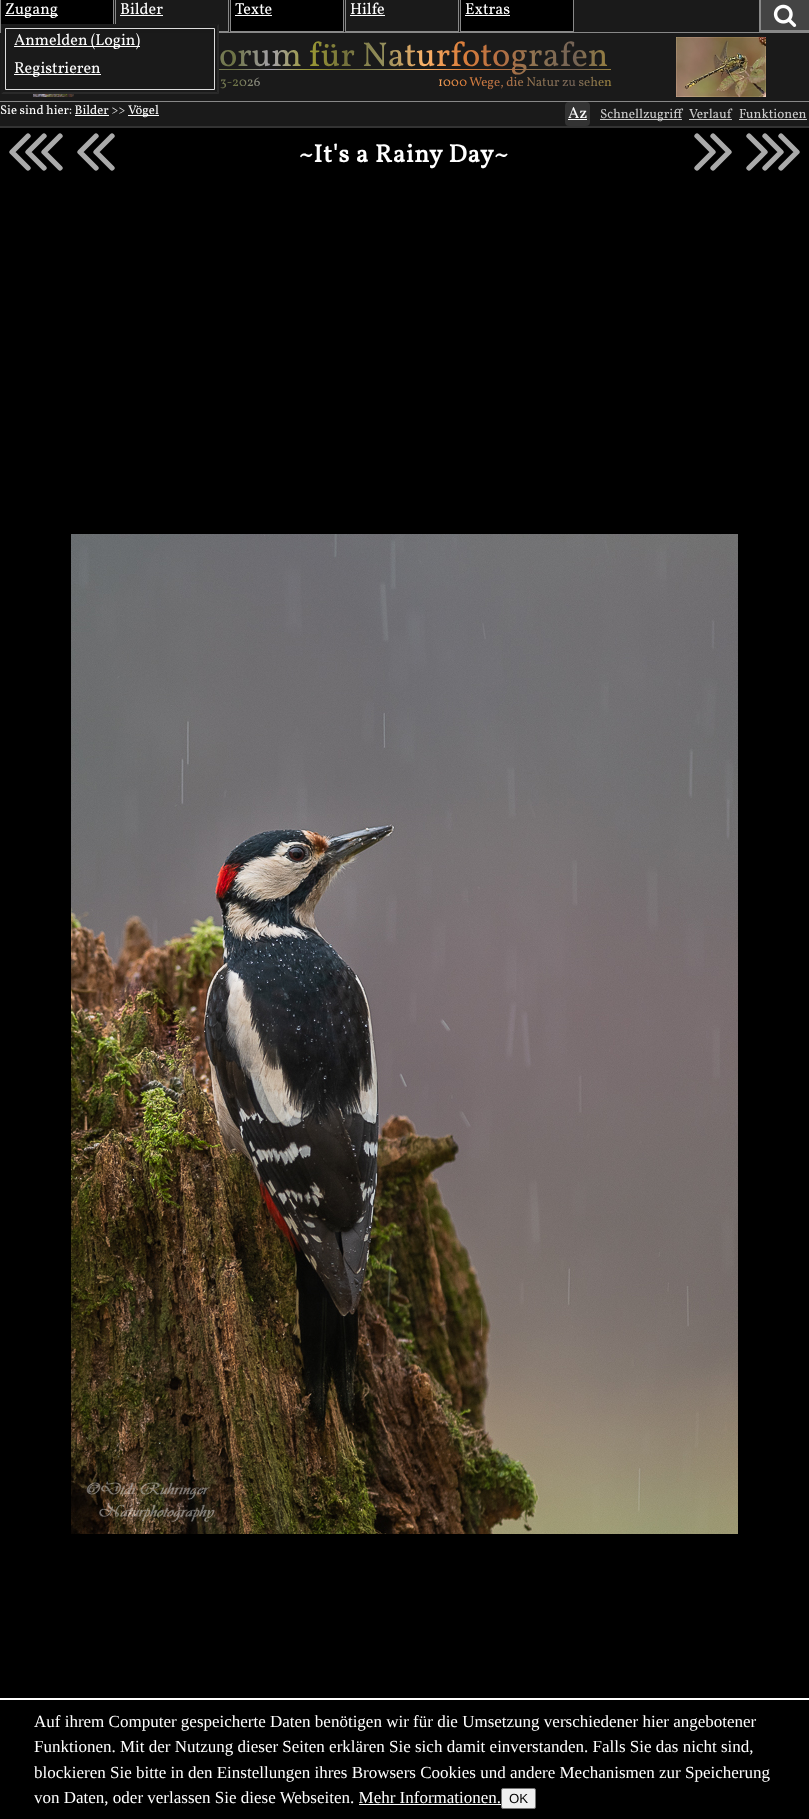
<svg xmlns="http://www.w3.org/2000/svg" width="809" height="1819" viewBox="0 0 809 1819">
  <defs>
    <linearGradient id="g1" gradientUnits="userSpaceOnUse" x1="197" y1="67" x2="611" y2="67"><stop offset="0" stop-color="#858a71"/><stop offset="0.09" stop-color="#6d7345"/><stop offset="0.18" stop-color="#a5a2ab"/><stop offset="0.27" stop-color="#9c9a33"/><stop offset="0.36" stop-color="#73713c"/><stop offset="0.45" stop-color="#948f5c"/><stop offset="0.55" stop-color="#fcb36a"/><stop offset="0.64" stop-color="#db7e3b"/><stop offset="0.73" stop-color="#b56f43"/><stop offset="0.82" stop-color="#8c7251"/><stop offset="0.91" stop-color="#736255"/><stop offset="1" stop-color="#99813f"/></linearGradient>
    <linearGradient id="g2" gradientUnits="userSpaceOnUse" x1="197" y1="70" x2="611" y2="69"><stop offset="0" stop-color="#858a71"/><stop offset="0.09" stop-color="#6d7345"/><stop offset="0.18" stop-color="#a5a2ab"/><stop offset="0.27" stop-color="#9c9a33"/><stop offset="0.36" stop-color="#73713c"/><stop offset="0.45" stop-color="#948f5c"/><stop offset="0.55" stop-color="#fcb36a"/><stop offset="0.64" stop-color="#db7e3b"/><stop offset="0.73" stop-color="#b56f43"/><stop offset="0.82" stop-color="#8c7251"/><stop offset="0.91" stop-color="#736255"/><stop offset="1" stop-color="#99813f"/></linearGradient>
  </defs>
  <rect width="100%" height="100%" fill="#000"/>
  <path d="M0 0h809v126H0z" fill="#1a1a1a"/>
  <path d="M0 126h809v2H0z" fill="#333"/>
  <path d="M1 0h112v24H1z" fill="#000"/>
  <path d="M113 0h1v32H113z" fill="#888"/>
  <path d="M0 0h1v32H0z" fill="#888"/>
  <path d="M5 15h53v1H5z" fill="#fff"/>
  <path d="M115 0h1v32H115z" fill="#888"/>
  <path d="M0 32h809v1H0z" fill="#888"/>
  <path d="M1 24h218v9H1z" fill="#191919"/>
  <path d="M1 24H219L217 26H3Z" fill="#1c1c1c"/>
  <path d="M219 24V94L217 92V26Z" fill="#2a2a2a"/>
  <path d="M219 94H1L3 92H217Z" fill="#2a2a2a"/>
  <path d="M1 94V24L3 26V92Z" fill="#1c1c1c"/>
  <path d="M5.5 28.5h209v61H5.5z" fill="none" stroke="#ddd"/>
  <path d="M14 46h126v1H14z" fill="#fff"/>
  <path d="M14 74h87v1H14z" fill="#fff"/>
  <path d="M228 0h1v32H228z" fill="#888"/>
  <path d="M219 31h10v1H219z" fill="#888"/>
  <path d="M120 15h43v1H120z" fill="#fff"/>
  <path d="M231 0h112v31H231z" fill="#000"/>
  <path d="M343 0h1v32H343z" fill="#888"/>
  <path d="M230 31h114v1H230z" fill="#888"/>
  <path d="M230 0h1v32H230z" fill="#888"/>
  <path d="M235 15h37v1H235z" fill="#fff"/>
  <path d="M458 0h1v32H458z" fill="#888"/>
  <path d="M345 31h114v1H345z" fill="#888"/>
  <path d="M345 0h1v32H345z" fill="#888"/>
  <path d="M350 15h35v1H350z" fill="#fff"/>
  <path d="M461 0h112v31H461z" fill="#000"/>
  <path d="M573 0h1v32H573z" fill="#888"/>
  <path d="M460 31h114v1H460z" fill="#888"/>
  <path d="M460 0h1v32H460z" fill="#888"/>
  <path d="M465 15h45v1H465z" fill="#fff"/>
  <path d="M761 0h48v30H761z" fill="#444"/>
  <path d="M759 30h50v2H759z" fill="#888"/>
  <path d="M759 0h2v32H759z" fill="#888"/>
  <image x="773" y="4" width="24" height="23" href="img/1.png"/>
  <path d="M0 101h809v1H0z" fill="#888"/>
  <image x="676" y="37" width="90" height="60" href="img/2.png"/>
  <image x="33" y="94" width="41" height="3" href="img/3.png"/>
  <path d="M128 115h31v1H128z" fill="#fff"/>
  <path d="M75 115h34v1H75z" fill="#fff"/>
  <rect x="565" y="102" width="25" height="24" rx="4" fill="#333"/>
  <path d="M568 119h19v1H568z" fill="#fff"/>
  <path d="M600 119h82v1H600z" fill="#ccc"/>
  <path d="M689 119h43v1H689z" fill="#ccc"/>
  <path d="M739 119h68v1H739z" fill="#ccc"/>
  <path d="M28 136L12 152L28 168M44 136L28 152L44 168M60 136L44 152L60 168" fill="none" stroke="#aaa" stroke-width="5.3" stroke-linecap="round" stroke-linejoin="round"/>
  <path d="M96 136L80 152L96 168M112 136L96 152L112 168" fill="none" stroke="#aaa" stroke-width="5.3" stroke-linecap="round" stroke-linejoin="round"/>
  <path d="M697 136L713 152L697 168M713 136L729 152L713 168" fill="none" stroke="#aaa" stroke-width="5.3" stroke-linecap="round" stroke-linejoin="round"/>
  <path d="M749 136L765 152L749 168M765 136L781 152L765 168M781 136L797 152L781 168" fill="none" stroke="#aaa" stroke-width="5.3" stroke-linecap="round" stroke-linejoin="round"/>
  <image x="71" y="534" width="667" height="1000" href="img/4.png"/>
  <path d="M0 1698h809v2H0z" fill="#fff"/>
  <rect x="501.5" y="1788.5" width="34" height="20" rx="1.5" fill="#efefef" stroke="#767676"/>
  <path d="M359 1804h142v1H359z" fill="#fff"/>
  <g font-family="Vollkorn" font-size="16" fill="#fff">
    <text x="5" y="14">Zugang</text>
    <text x="14" y="45">Anmelden (Login)</text>
    <text x="14" y="73">Registrieren</text>
    <text x="120" y="14">Bilder</text>
    <text x="235" y="14">Texte</text>
    <text x="350" y="14">Hilfe</text>
    <text x="465" y="14">Extras</text>
  </g>
  <text x="219" y="66" font-family="Vollkorn" font-size="34.5" fill="url(#g1)">orum für Naturfotografen</text>
  <path d="M219 69h392v1H219z" fill="url(#g2)"/>
  <g font-family="Vollkorn" font-size="13" fill="url(#g1)">
    <text x="220" y="86">3-2026</text>
    <text x="438" y="86">1000 Wege, die Natur zu sehen</text>
  </g>
  <g font-family="Vollkorn" font-size="12.75" fill="#fff">
    <text x="0" y="114">Sie sind hier: Bilder &gt;&gt;</text>
    <text x="128" y="114">Vögel</text>
  </g>
  <text x="568" y="118" font-family="Vollkorn" font-size="16" fill="#fff">Az</text>
  <g font-family="Vollkorn" font-size="13.25" fill="#ccc">
    <text x="600" y="118">Schnellzugriff</text>
    <text x="689" y="118">Verlauf</text>
    <text x="739" y="118">Funktionen</text>
  </g>
  <text x="299" y="162" font-family="Vollkorn" font-size="25" font-weight="bold" letter-spacing="0.8" fill="#fff">~It's a Rainy Day~</text>
  <g font-family="Liberation Serif" font-size="17" fill="#fff">
    <text x="34" y="1727">Auf ihrem Computer gespeicherte Daten benötigen wir für die Umsetzung verschiedener hier angebotener</text>
    <text x="34" y="1752">Funktionen. Mit der Nutzung dieser Seiten erklären Sie sich damit einverstanden. Falls Sie das nicht sind,</text>
    <text x="34" y="1778">blockieren Sie bitte in den Einstellungen ihres Browsers Cookies und andere Mechanismen zur Speicherung</text>
    <text x="34" y="1803">von Daten, oder verlassen Sie diese Webseiten. Mehr Informationen.</text>
  </g>
  <text x="509" y="1803" font-family="Liberation Sans" font-size="13.25" fill="#000">OK</text>
</svg>
